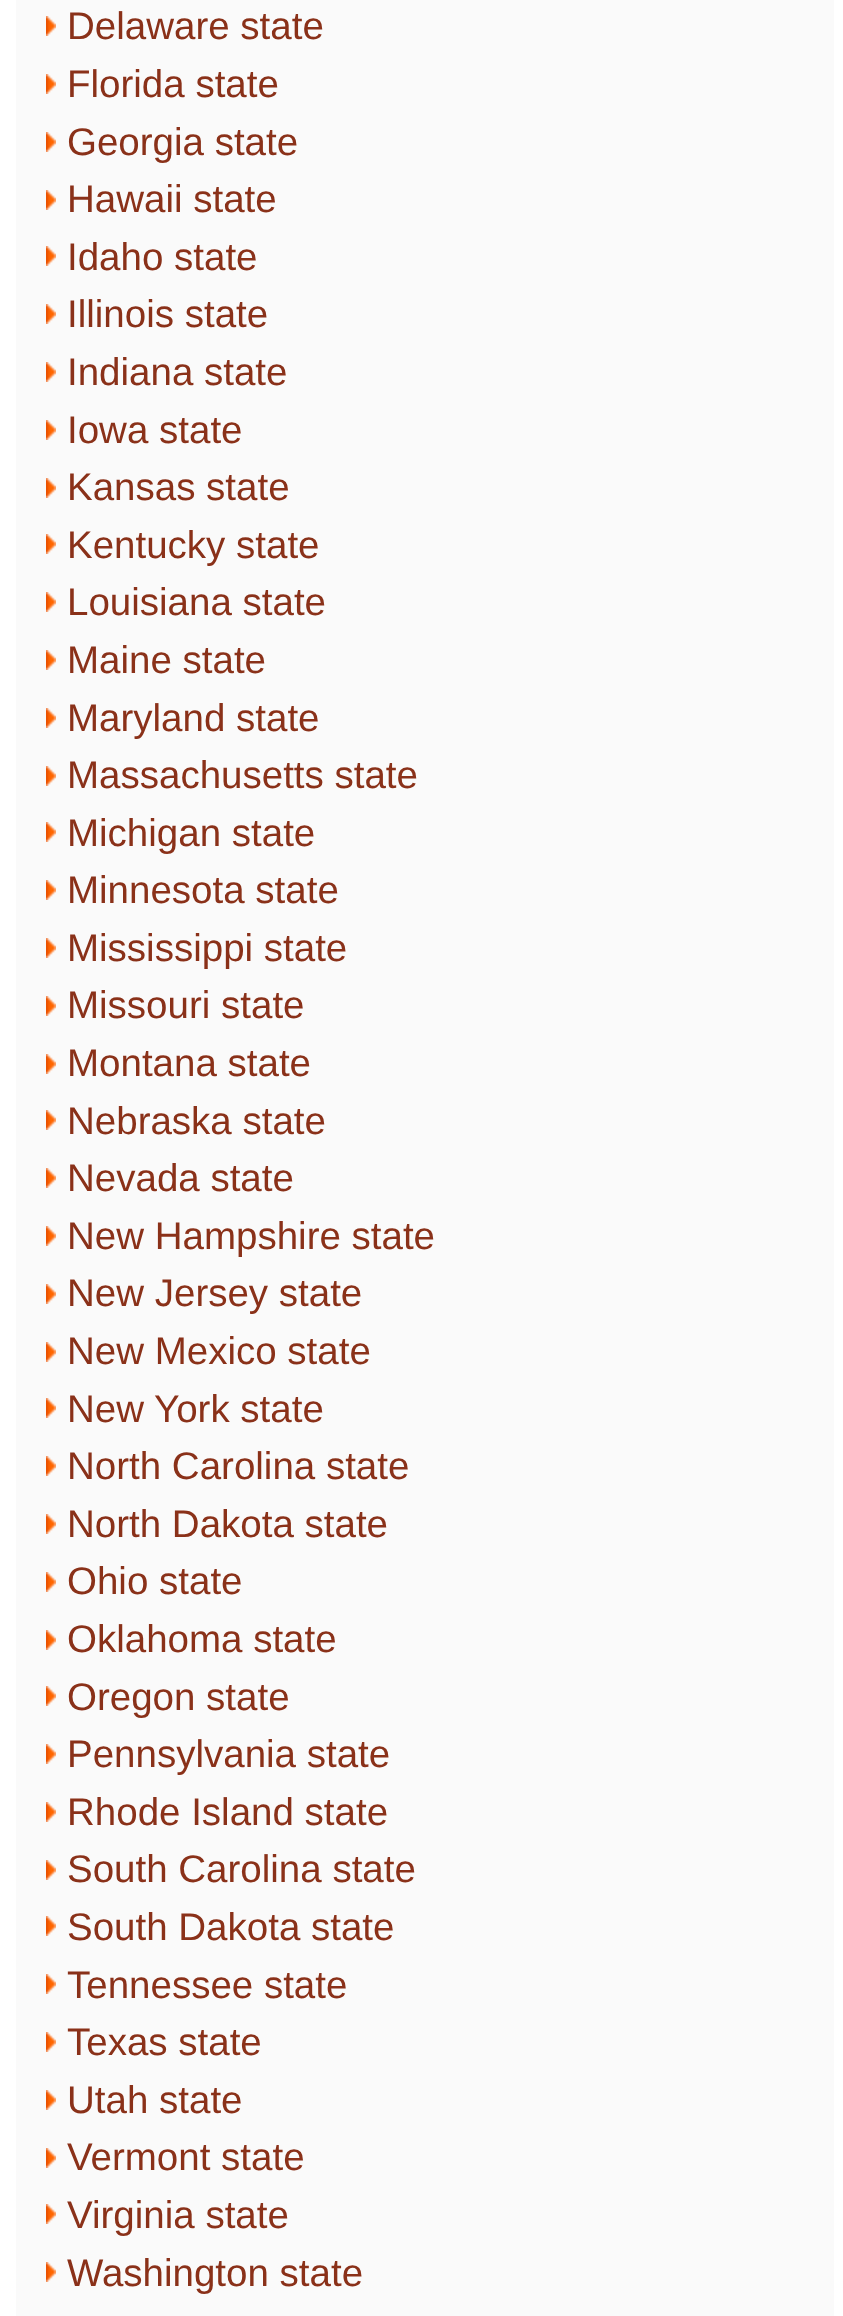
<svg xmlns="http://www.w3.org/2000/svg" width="843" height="2316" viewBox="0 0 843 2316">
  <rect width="100%" height="100%" fill="#fff"/>
  <path d="M16 0h818v2316H16z" fill="#fafafa"/>
  <image x="46" y="16" width="10" height="20" href="img/1.png"/>
  <image x="46" y="74" width="10" height="20" href="img/1.png"/>
  <image x="46" y="132" width="10" height="20" href="img/1.png"/>
  <image x="46" y="190" width="10" height="20" href="img/1.png"/>
  <image x="46" y="246" width="10" height="20" href="img/1.png"/>
  <image x="46" y="304" width="10" height="20" href="img/1.png"/>
  <image x="46" y="362" width="10" height="20" href="img/1.png"/>
  <image x="46" y="420" width="10" height="20" href="img/1.png"/>
  <image x="46" y="478" width="10" height="20" href="img/1.png"/>
  <image x="46" y="534" width="10" height="20" href="img/1.png"/>
  <image x="46" y="592" width="10" height="20" href="img/1.png"/>
  <image x="46" y="650" width="10" height="20" href="img/1.png"/>
  <image x="46" y="708" width="10" height="20" href="img/1.png"/>
  <image x="46" y="766" width="10" height="20" href="img/1.png"/>
  <image x="46" y="822" width="10" height="20" href="img/1.png"/>
  <image x="46" y="880" width="10" height="20" href="img/1.png"/>
  <image x="46" y="938" width="10" height="20" href="img/1.png"/>
  <image x="46" y="996" width="10" height="20" href="img/1.png"/>
  <image x="46" y="1054" width="10" height="20" href="img/1.png"/>
  <image x="46" y="1110" width="10" height="20" href="img/1.png"/>
  <image x="46" y="1168" width="10" height="20" href="img/1.png"/>
  <image x="46" y="1226" width="10" height="20" href="img/1.png"/>
  <image x="46" y="1284" width="10" height="20" href="img/1.png"/>
  <image x="46" y="1342" width="10" height="20" href="img/1.png"/>
  <image x="46" y="1398" width="10" height="20" href="img/1.png"/>
  <image x="46" y="1456" width="10" height="20" href="img/1.png"/>
  <image x="46" y="1514" width="10" height="20" href="img/1.png"/>
  <image x="46" y="1572" width="10" height="20" href="img/1.png"/>
  <image x="46" y="1630" width="10" height="20" href="img/1.png"/>
  <image x="46" y="1686" width="10" height="20" href="img/1.png"/>
  <image x="46" y="1744" width="10" height="20" href="img/1.png"/>
  <image x="46" y="1802" width="10" height="20" href="img/1.png"/>
  <image x="46" y="1860" width="10" height="20" href="img/1.png"/>
  <image x="46" y="1916" width="10" height="20" href="img/1.png"/>
  <image x="46" y="1974" width="10" height="20" href="img/1.png"/>
  <image x="46" y="2032" width="10" height="20" href="img/1.png"/>
  <image x="46" y="2090" width="10" height="20" href="img/1.png"/>
  <image x="46" y="2148" width="10" height="20" href="img/1.png"/>
  <image x="46" y="2204" width="10" height="20" href="img/1.png"/>
  <image x="46" y="2262" width="10" height="20" href="img/1.png"/>
  <g font-family="Liberation Sans" font-size="38.5" fill="#8a3119">
    <text x="67" y="39">Delaware state</text>
    <text x="67" y="97">Florida state</text>
    <text x="67" y="155">Georgia state</text>
    <text x="67" y="212">Hawaii state</text>
    <text x="67" y="270">Idaho state</text>
    <text x="67" y="327">Illinois state</text>
    <text x="67" y="385">Indiana state</text>
    <text x="67" y="443">Iowa state</text>
    <text x="67" y="500">Kansas state</text>
    <text x="67" y="558">Kentucky state</text>
    <text x="67" y="615">Louisiana state</text>
    <text x="67" y="673">Maine state</text>
    <text x="67" y="731">Maryland state</text>
    <text x="67" y="788">Massachusetts state</text>
    <text x="67" y="846">Michigan state</text>
    <text x="67" y="903">Minnesota state</text>
    <text x="67" y="961">Mississippi state</text>
    <text x="67" y="1018">Missouri state</text>
    <text x="67" y="1076">Montana state</text>
    <text x="67" y="1134">Nebraska state</text>
    <text x="67" y="1191">Nevada state</text>
    <text x="67" y="1249">New Hampshire state</text>
    <text x="67" y="1306">New Jersey state</text>
    <text x="67" y="1364">New Mexico state</text>
    <text x="67" y="1422">New York state</text>
    <text x="67" y="1479">North Carolina state</text>
    <text x="67" y="1537">North Dakota state</text>
    <text x="67" y="1594">Ohio state</text>
    <text x="67" y="1652">Oklahoma state</text>
    <text x="67" y="1710">Oregon state</text>
    <text x="67" y="1767">Pennsylvania state</text>
    <text x="67" y="1825">Rhode Island state</text>
    <text x="67" y="1882">South Carolina state</text>
    <text x="67" y="1940">South Dakota state</text>
    <text x="67" y="1998">Tennessee state</text>
    <text x="67" y="2055">Texas state</text>
    <text x="67" y="2113">Utah state</text>
    <text x="67" y="2170">Vermont state</text>
    <text x="67" y="2228">Virginia state</text>
    <text x="67" y="2286">Washington state</text>
  </g>
</svg>
